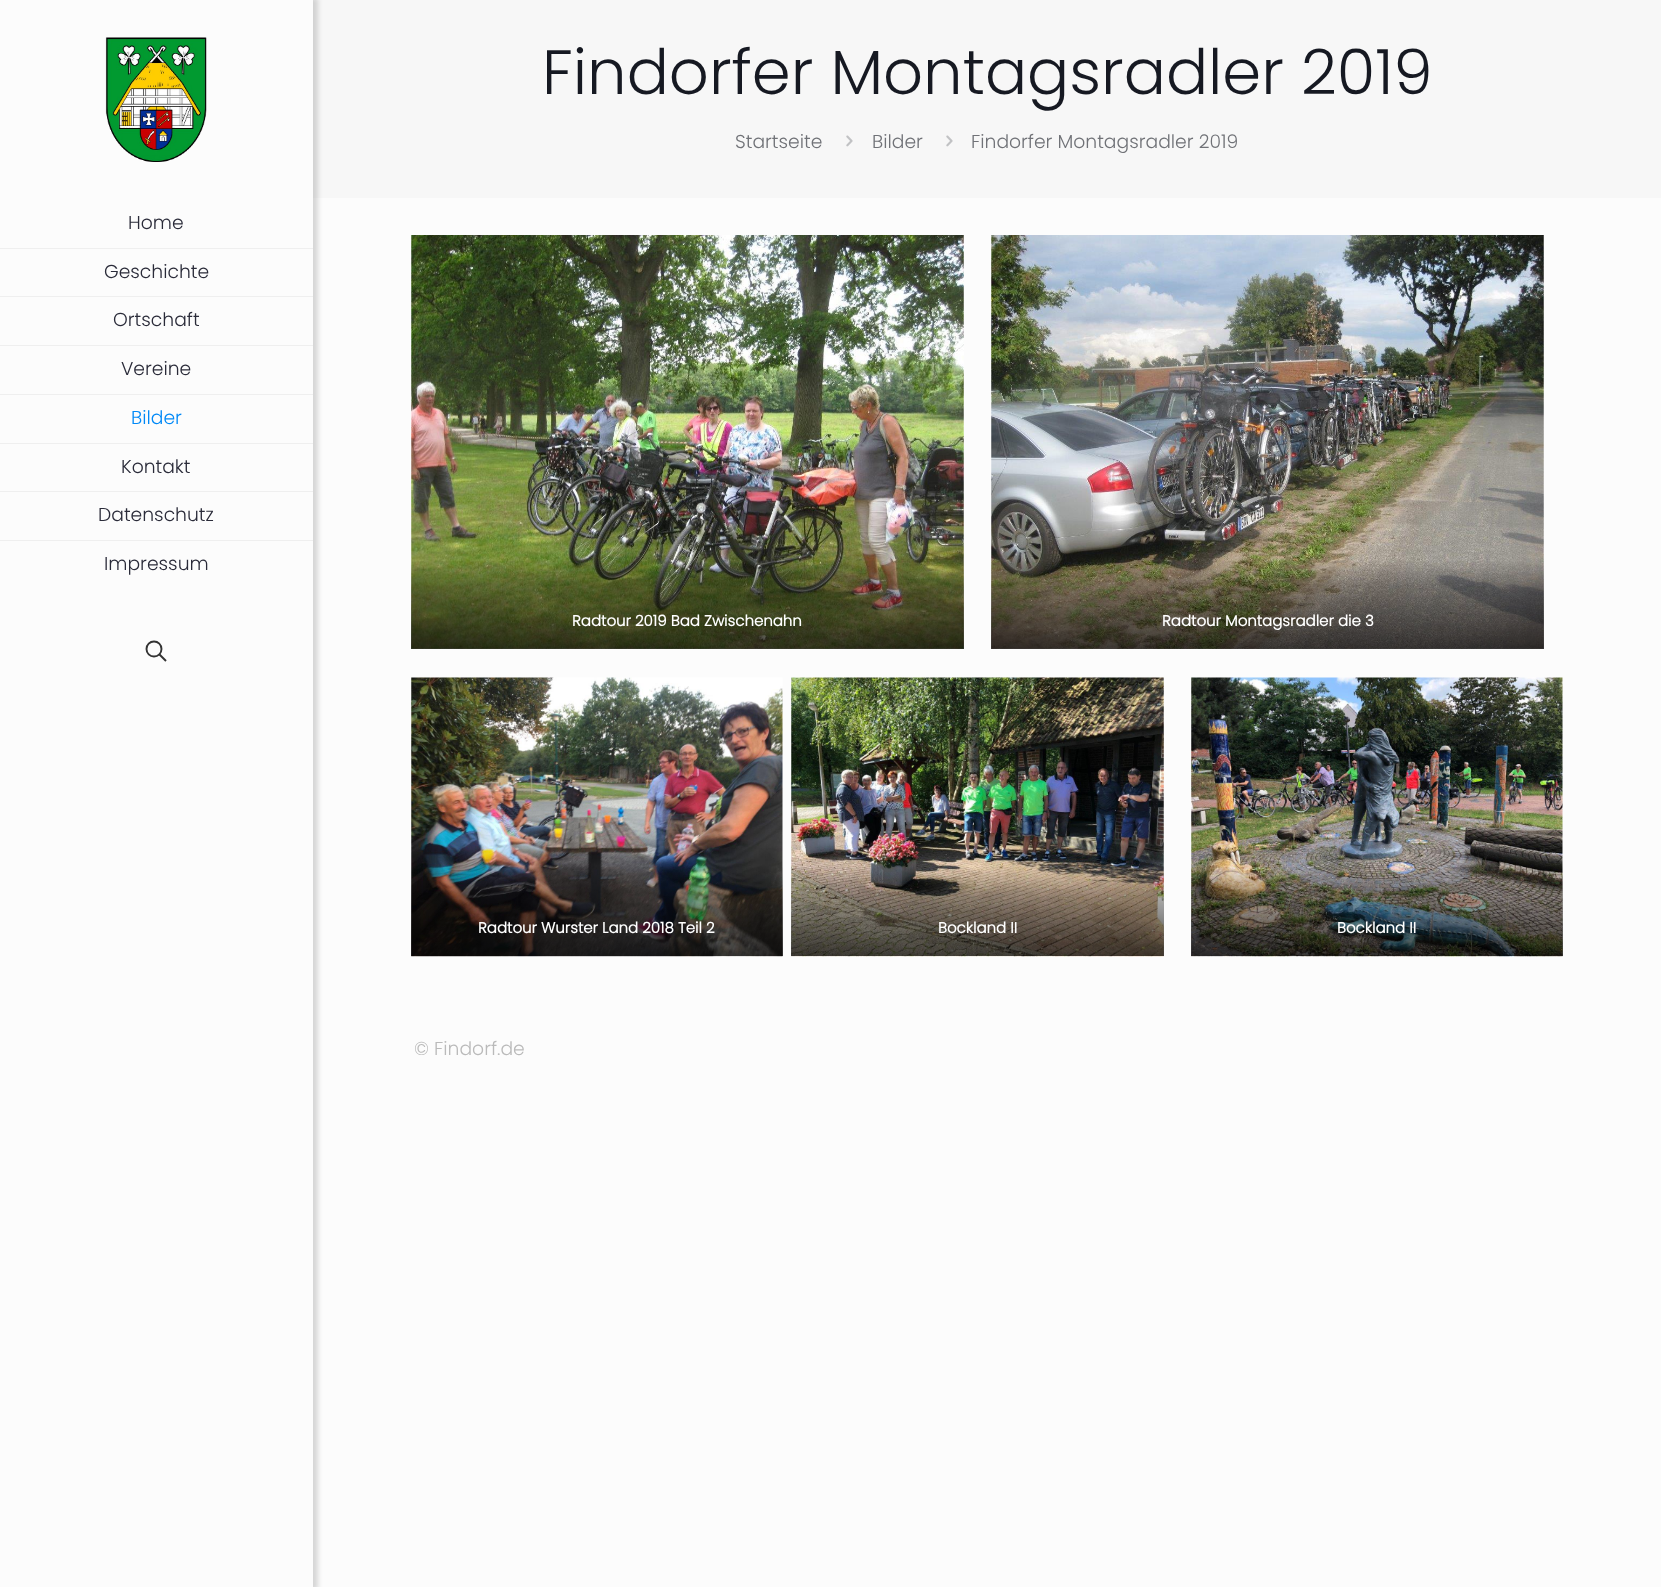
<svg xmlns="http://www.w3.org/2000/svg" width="1661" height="1587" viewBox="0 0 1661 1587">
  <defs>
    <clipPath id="clip1"><path d="M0 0H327V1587H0ZM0 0H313V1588H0Z" clip-rule="evenodd"/></clipPath>
    <linearGradient id="g1" gradientUnits="userSpaceOnUse" x1="688" y1="649" x2="688" y2="559"><stop offset="0" stop-color="#000" stop-opacity="0.7"/><stop offset="0.7" stop-color="#000" stop-opacity="0.3"/><stop offset="1" stop-color="#000" stop-opacity="0"/></linearGradient>
    <linearGradient id="g2" gradientUnits="userSpaceOnUse" x1="1268" y1="649" x2="1268" y2="559"><stop offset="0" stop-color="#000" stop-opacity="0.7"/><stop offset="0.7" stop-color="#000" stop-opacity="0.3"/><stop offset="1" stop-color="#000" stop-opacity="0"/></linearGradient>
    <linearGradient id="g3" gradientUnits="userSpaceOnUse" x1="597" y1="956" x2="597" y2="865"><stop offset="0" stop-color="#000" stop-opacity="0.7"/><stop offset="0.7" stop-color="#000" stop-opacity="0.3"/><stop offset="1" stop-color="#000" stop-opacity="0"/></linearGradient>
    <linearGradient id="g4" gradientUnits="userSpaceOnUse" x1="978" y1="956" x2="978" y2="865"><stop offset="0" stop-color="#000" stop-opacity="0.7"/><stop offset="0.7" stop-color="#000" stop-opacity="0.3"/><stop offset="1" stop-color="#000" stop-opacity="0"/></linearGradient>
    <linearGradient id="g5" gradientUnits="userSpaceOnUse" x1="1377" y1="956" x2="1377" y2="865"><stop offset="0" stop-color="#000" stop-opacity="0.7"/><stop offset="0.7" stop-color="#000" stop-opacity="0.3"/><stop offset="1" stop-color="#000" stop-opacity="0"/></linearGradient>
  </defs>
  <rect width="100%" height="100%" fill="#fcfcfc"/>
  <path d="M313 0h1348v198H313z" fill="#f7f7f7"/>
  <g clip-path="url(#clip1)">
    <path d="M0 -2h318v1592H0z" fill="#00000026" filter="blur(2.5px)"/>
  </g>
  <image x="105" y="37" width="102" height="125" href="img/1.png"/>
  <path d="M0 248h313v1H0z" fill="#0000000d"/>
  <path d="M0 296h313v1H0z" fill="#0000000d"/>
  <path d="M0 345h313v1H0z" fill="#0000000d"/>
  <path d="M0 394h313v1H0z" fill="#0000000d"/>
  <path d="M0 443h313v1H0z" fill="#0000000d"/>
  <path d="M0 491h313v1H0z" fill="#0000000d"/>
  <path d="M0 540h313v1H0z" fill="#0000000d"/>
  <circle cx="154" cy="649" r="7.5" fill="none" stroke="#333" stroke-width="1.9"/>
  <path d="M159.5 654.5L166 661" fill="none" stroke="#333" stroke-width="1.9"/>
  <image x="846" y="135" width="7" height="12" href="img/2.png"/>
  <image x="946" y="135" width="7" height="12" href="img/2.png"/>
  <image x="411" y="235" width="553" height="414" href="img/3.png"/>
  <path d="M411 561h553v88H411z" fill="url(#g1)"/>
  <image x="991" y="235" width="553" height="414" href="img/4.png"/>
  <path d="M991 561h553v88H991z" fill="url(#g2)"/>
  <image x="411" y="677" width="372" height="280" href="img/5.png"/>
  <path d="M411 867h372v89H411z" fill="url(#g3)"/>
  <image x="791" y="677" width="373" height="280" href="img/6.png"/>
  <path d="M791 867h373v89H791z" fill="url(#g4)"/>
  <image x="1191" y="677" width="372" height="280" href="img/7.png"/>
  <path d="M1191 867h372v89H1191z" fill="url(#g5)"/>
  <g font-family="Poppins" font-size="18.75" font-weight="300" fill="#2a2b39">
    <text x="128" y="229">Home</text>
    <text x="104" y="278">Geschichte</text>
    <text x="113" y="326">Ortschaft</text>
    <text x="121" y="375">Vereine</text>
  </g>
  <text x="131" y="424" font-family="Poppins" font-size="18.75" font-weight="300" fill="#0089f7">Bilder</text>
  <g font-family="Poppins" font-size="18.75" font-weight="300" fill="#2a2b39">
    <text x="121" y="473">Kontakt</text>
    <text x="98" y="521">Datenschutz</text>
    <text x="104" y="570">Impressum</text>
  </g>
  <text x="542" y="94" font-family="Poppins" font-size="62.5" font-weight="300" fill="#161922">Findorfer Montagsradler 2019</text>
  <g font-family="Poppins" font-size="18.75" font-weight="300" fill="#707277">
    <text x="735" y="148">Startseite</text>
    <text x="872" y="148">Bilder</text>
    <text x="971" y="148">Findorfer Montagsradler 2019</text>
  </g>
  <g font-family="Poppins" font-size="15" font-weight="bold" fill="#fff">
    <text x="572" y="626">Radtour 2019 Bad Zwischenahn</text>
    <text x="1162" y="626">Radtour Montagsradler die 3</text>
    <text x="478" y="933">Radtour Wurster Land 2018 Teil 2</text>
    <text x="938" y="933">Bockland II</text>
    <text x="1337" y="933">Bockland II</text>
  </g>
  <text x="414" y="1055" font-family="Poppins" font-size="18.75" font-weight="300" fill="#bababa">© Findorf.de</text>
</svg>
